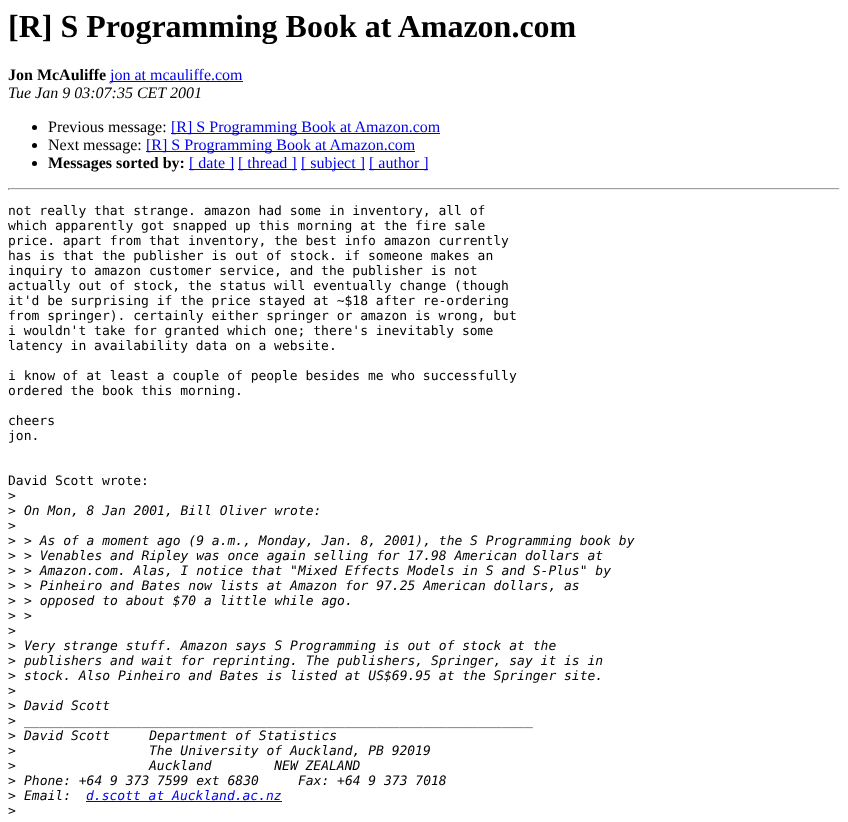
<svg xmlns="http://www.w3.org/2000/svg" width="848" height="822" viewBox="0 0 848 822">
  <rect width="100%" height="100%" fill="#fff"/>
  <path d="M110 81h133v1H110z" fill="#00e"/>
  <circle cx="34.5" cy="127.5" r="2.5" fill="#000"/>
  <path d="M171 133h269v1H171z" fill="#00e"/>
  <circle cx="34.5" cy="145.5" r="2.5" fill="#000"/>
  <path d="M146 151h269v1H146z" fill="#00e"/>
  <circle cx="34.5" cy="163.5" r="2.5" fill="#000"/>
  <path d="M189 169h45v1H189z" fill="#00e"/>
  <path d="M238 169h59v1H238z" fill="#00e"/>
  <path d="M301 169h64v1H301z" fill="#00e"/>
  <path d="M369 169h59v1H369z" fill="#00e"/>
  <path d="M8 188h832v1H8z" fill="#9f9f9f"/>
  <path d="M839 188h1v2H839z" fill="#eee"/>
  <path d="M8 189h832v1H8z" fill="#eee"/>
  <path d="M8 188h1v2H8z" fill="#9f9f9f"/>
  <path d="M86 801h196v1H86z" fill="#00e"/>
  <text x="8" y="37" font-family="Liberation Serif" font-size="32" font-weight="bold" fill="#000">[R] S Programming Book at Amazon.com</text>
  <text x="8" y="80" font-family="Liberation Serif" font-size="16" font-weight="bold" fill="#000">Jon McAuliffe</text>
  <text x="110" y="80" font-family="Liberation Serif" font-size="16" fill="#00e">jon at mcauliffe.com</text>
  <text x="8" y="98" font-family="Liberation Serif" font-size="16" font-style="italic" fill="#000">Tue Jan 9 03:07:35 CET 2001</text>
  <text x="48" y="132" font-family="Liberation Serif" font-size="16" fill="#000">Previous message:</text>
  <text x="171" y="132" font-family="Liberation Serif" font-size="16" fill="#00e">[R] S Programming Book at Amazon.com</text>
  <text x="48" y="150" font-family="Liberation Serif" font-size="16" fill="#000">Next message:</text>
  <text x="146" y="150" font-family="Liberation Serif" font-size="16" fill="#00e">[R] S Programming Book at Amazon.com</text>
  <text x="48" y="168" font-family="Liberation Serif" font-size="16" font-weight="bold" fill="#000">Messages sorted by:</text>
  <g font-family="Liberation Serif" font-size="16" fill="#00e">
    <text x="189" y="168">[ date ]</text>
    <text x="238" y="168">[ thread ]</text>
    <text x="301" y="168">[ subject ]</text>
    <text x="369" y="168">[ author ]</text>
  </g>
  <g font-family="DejaVu Sans Mono" font-size="13" fill="#000">
    <text x="8" y="215">not really that strange. amazon had some in inventory, all of</text>
    <text x="8" y="230">which apparently got snapped up this morning at the fire sale</text>
    <text x="8" y="245">price. apart from that inventory, the best info amazon currently</text>
    <text x="8" y="260">has is that the publisher is out of stock. if someone makes an</text>
    <text x="8" y="275">inquiry to amazon customer service, and the publisher is not</text>
    <text x="8" y="290">actually out of stock, the status will eventually change (though</text>
    <text x="8" y="305">it'd be surprising if the price stayed at ~$18 after re-ordering</text>
    <text x="8" y="320">from springer). certainly either springer or amazon is wrong, but</text>
    <text x="8" y="335">i wouldn't take for granted which one; there's inevitably some</text>
    <text x="8" y="350">latency in availability data on a website.</text>
    <text x="8" y="380">i know of at least a couple of people besides me who successfully</text>
    <text x="8" y="395">ordered the book this morning.</text>
    <text x="8" y="425">cheers</text>
    <text x="8" y="440">jon.</text>
    <text x="8" y="485">David Scott wrote:</text>
    <text x="8" y="500">&gt;</text>
    <text x="8" y="515">&gt;</text>
  </g>
  <text x="24" y="515" font-family="DejaVu Sans Mono" font-size="13" font-style="italic" fill="#000">On Mon, 8 Jan 2001, Bill Oliver wrote:</text>
  <g font-family="DejaVu Sans Mono" font-size="13" fill="#000">
    <text x="8" y="530">&gt;</text>
    <text x="8" y="545">&gt;</text>
  </g>
  <text x="24" y="545" font-family="DejaVu Sans Mono" font-size="13" font-style="italic" fill="#000">&gt; As of a moment ago (9 a.m., Monday, Jan. 8, 2001), the S Programming book by</text>
  <text x="8" y="560" font-family="DejaVu Sans Mono" font-size="13" fill="#000">&gt;</text>
  <text x="24" y="560" font-family="DejaVu Sans Mono" font-size="13" font-style="italic" fill="#000">&gt; Venables and Ripley was once again selling for 17.98 American dollars at</text>
  <text x="8" y="575" font-family="DejaVu Sans Mono" font-size="13" fill="#000">&gt;</text>
  <text x="24" y="575" font-family="DejaVu Sans Mono" font-size="13" font-style="italic" fill="#000">&gt; Amazon.com. Alas, I notice that "Mixed Effects Models in S and S-Plus" by</text>
  <text x="8" y="590" font-family="DejaVu Sans Mono" font-size="13" fill="#000">&gt;</text>
  <text x="24" y="590" font-family="DejaVu Sans Mono" font-size="13" font-style="italic" fill="#000">&gt; Pinheiro and Bates now lists at Amazon for 97.25 American dollars, as</text>
  <text x="8" y="605" font-family="DejaVu Sans Mono" font-size="13" fill="#000">&gt;</text>
  <text x="24" y="605" font-family="DejaVu Sans Mono" font-size="13" font-style="italic" fill="#000">&gt; opposed to about $70 a little while ago.</text>
  <text x="8" y="620" font-family="DejaVu Sans Mono" font-size="13" fill="#000">&gt;</text>
  <text x="24" y="620" font-family="DejaVu Sans Mono" font-size="13" font-style="italic" fill="#000">&gt;</text>
  <g font-family="DejaVu Sans Mono" font-size="13" fill="#000">
    <text x="8" y="635">&gt;</text>
    <text x="8" y="650">&gt;</text>
  </g>
  <text x="24" y="650" font-family="DejaVu Sans Mono" font-size="13" font-style="italic" fill="#000">Very strange stuff. Amazon says S Programming is out of stock at the</text>
  <text x="8" y="665" font-family="DejaVu Sans Mono" font-size="13" fill="#000">&gt;</text>
  <text x="24" y="665" font-family="DejaVu Sans Mono" font-size="13" font-style="italic" fill="#000">publishers and wait for reprinting. The publishers, Springer, say it is in</text>
  <text x="8" y="680" font-family="DejaVu Sans Mono" font-size="13" fill="#000">&gt;</text>
  <text x="24" y="680" font-family="DejaVu Sans Mono" font-size="13" font-style="italic" fill="#000">stock. Also Pinheiro and Bates is listed at US$69.95 at the Springer site.</text>
  <g font-family="DejaVu Sans Mono" font-size="13" fill="#000">
    <text x="8" y="695">&gt;</text>
    <text x="8" y="710">&gt;</text>
  </g>
  <text x="24" y="710" font-family="DejaVu Sans Mono" font-size="13" font-style="italic" fill="#000">David Scott</text>
  <text x="8" y="725" font-family="DejaVu Sans Mono" font-size="13" fill="#000">&gt;</text>
  <text x="24" y="725" font-family="DejaVu Sans Mono" font-size="13" font-style="italic" fill="#000">_________________________________________________________________</text>
  <text x="8" y="740" font-family="DejaVu Sans Mono" font-size="13" fill="#000">&gt;</text>
  <text x="24" y="740" font-family="DejaVu Sans Mono" font-size="13" font-style="italic" fill="#000" xml:space="preserve">David Scott     Department of Statistics</text>
  <text x="8" y="755" font-family="DejaVu Sans Mono" font-size="13" fill="#000">&gt;</text>
  <text x="149" y="755" font-family="DejaVu Sans Mono" font-size="13" font-style="italic" fill="#000">The University of Auckland, PB 92019</text>
  <text x="8" y="770" font-family="DejaVu Sans Mono" font-size="13" fill="#000">&gt;</text>
  <text x="149" y="770" font-family="DejaVu Sans Mono" font-size="13" font-style="italic" fill="#000" xml:space="preserve">Auckland        NEW ZEALAND</text>
  <text x="8" y="785" font-family="DejaVu Sans Mono" font-size="13" fill="#000">&gt;</text>
  <text x="24" y="785" font-family="DejaVu Sans Mono" font-size="13" font-style="italic" fill="#000" xml:space="preserve">Phone: +64 9 373 7599 ext 6830     Fax: +64 9 373 7018</text>
  <text x="8" y="800" font-family="DejaVu Sans Mono" font-size="13" fill="#000">&gt;</text>
  <text x="24" y="800" font-family="DejaVu Sans Mono" font-size="13" font-style="italic" fill="#000">Email:</text>
  <text x="86" y="800" font-family="DejaVu Sans Mono" font-size="13" font-style="italic" fill="#00e">d.scott at Auckland.ac.nz</text>
  <text x="8" y="815" font-family="DejaVu Sans Mono" font-size="13" fill="#000">&gt;</text>
</svg>
